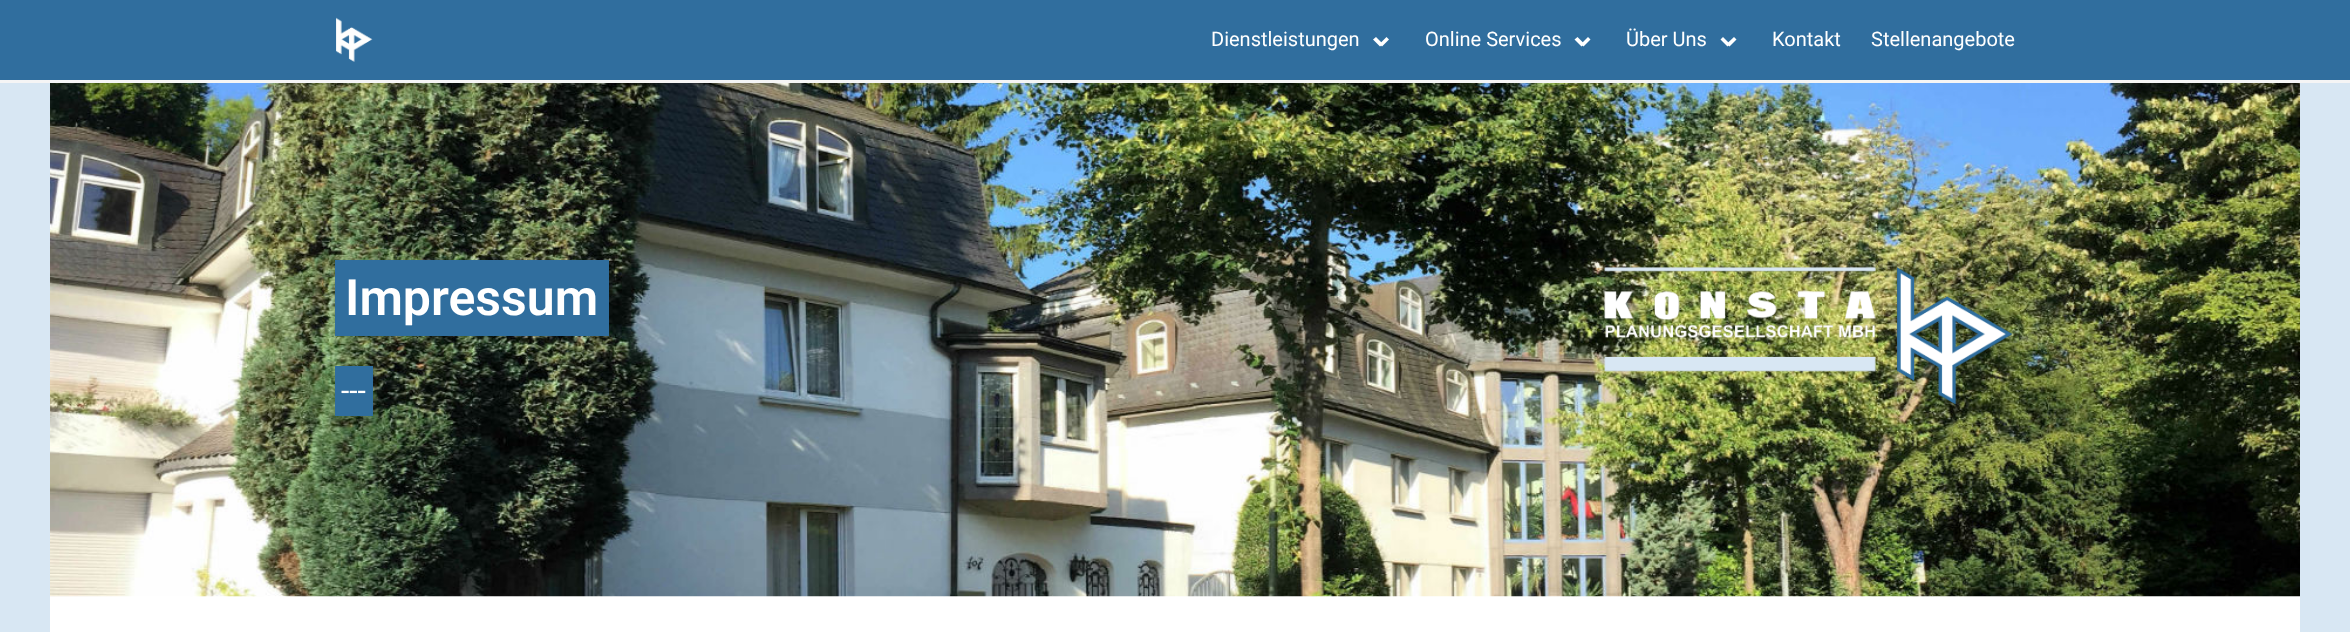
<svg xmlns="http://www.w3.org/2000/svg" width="2350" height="632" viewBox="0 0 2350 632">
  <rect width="100%" height="100%" fill="#d8e7f3"/>
  <path d="M0 80h2350v3H0z" fill="#f5f5f5"/>
  <path d="M0 0h2350v80H0z" fill="#306e9e"/>
  <image x="336" y="17" width="37" height="45" href="img/1.png"/>
  <path d="M1379.5 44L1386.5 37L1389 39.5L1382 46.5Z" fill="#fff"/>
  <path d="M1373 39.5L1376 37L1383 44L1380 46.5Z" fill="#fff"/>
  <path d="M1581 44L1588 37L1590.5 39.5L1583.5 46.5Z" fill="#fff"/>
  <path d="M1574.5 39.5L1577.5 37L1584.5 44L1581.5 46.5Z" fill="#fff"/>
  <path d="M1726.5 44L1734 37L1736.5 39.5L1729.5 46.5Z" fill="#fff"/>
  <path d="M1720.5 39.5L1723 37L1730 44L1727.5 46.5Z" fill="#fff"/>
  <path d="M50 596h2250v36H50z" fill="#fff"/>
  <image x="50" y="83" width="2250" height="514" href="img/2.png"/>
  <path d="M335 260h274v76H335z" fill="#306e9e"/>
  <path d="M335 366h38v50H335z" fill="#306e9e"/>
  <image x="1604" y="267" width="409" height="138" href="img/3.png"/>
  <g font-family="Roboto" font-size="20" fill="#fff">
    <text x="1211" y="46">Dienstleistungen</text>
    <text x="1425" y="46">Online Services</text>
    <text x="1626" y="46">Über Uns</text>
    <text x="1772" y="46">Kontakt</text>
    <text x="1871" y="46">Stellenangebote</text>
  </g>
  <text x="345" y="315" font-family="Roboto" font-size="50" font-weight="600" fill="#fff">Impressum</text>
  <text x="341" y="401" font-family="Roboto" font-size="30" fill="#fff">---</text>
</svg>
